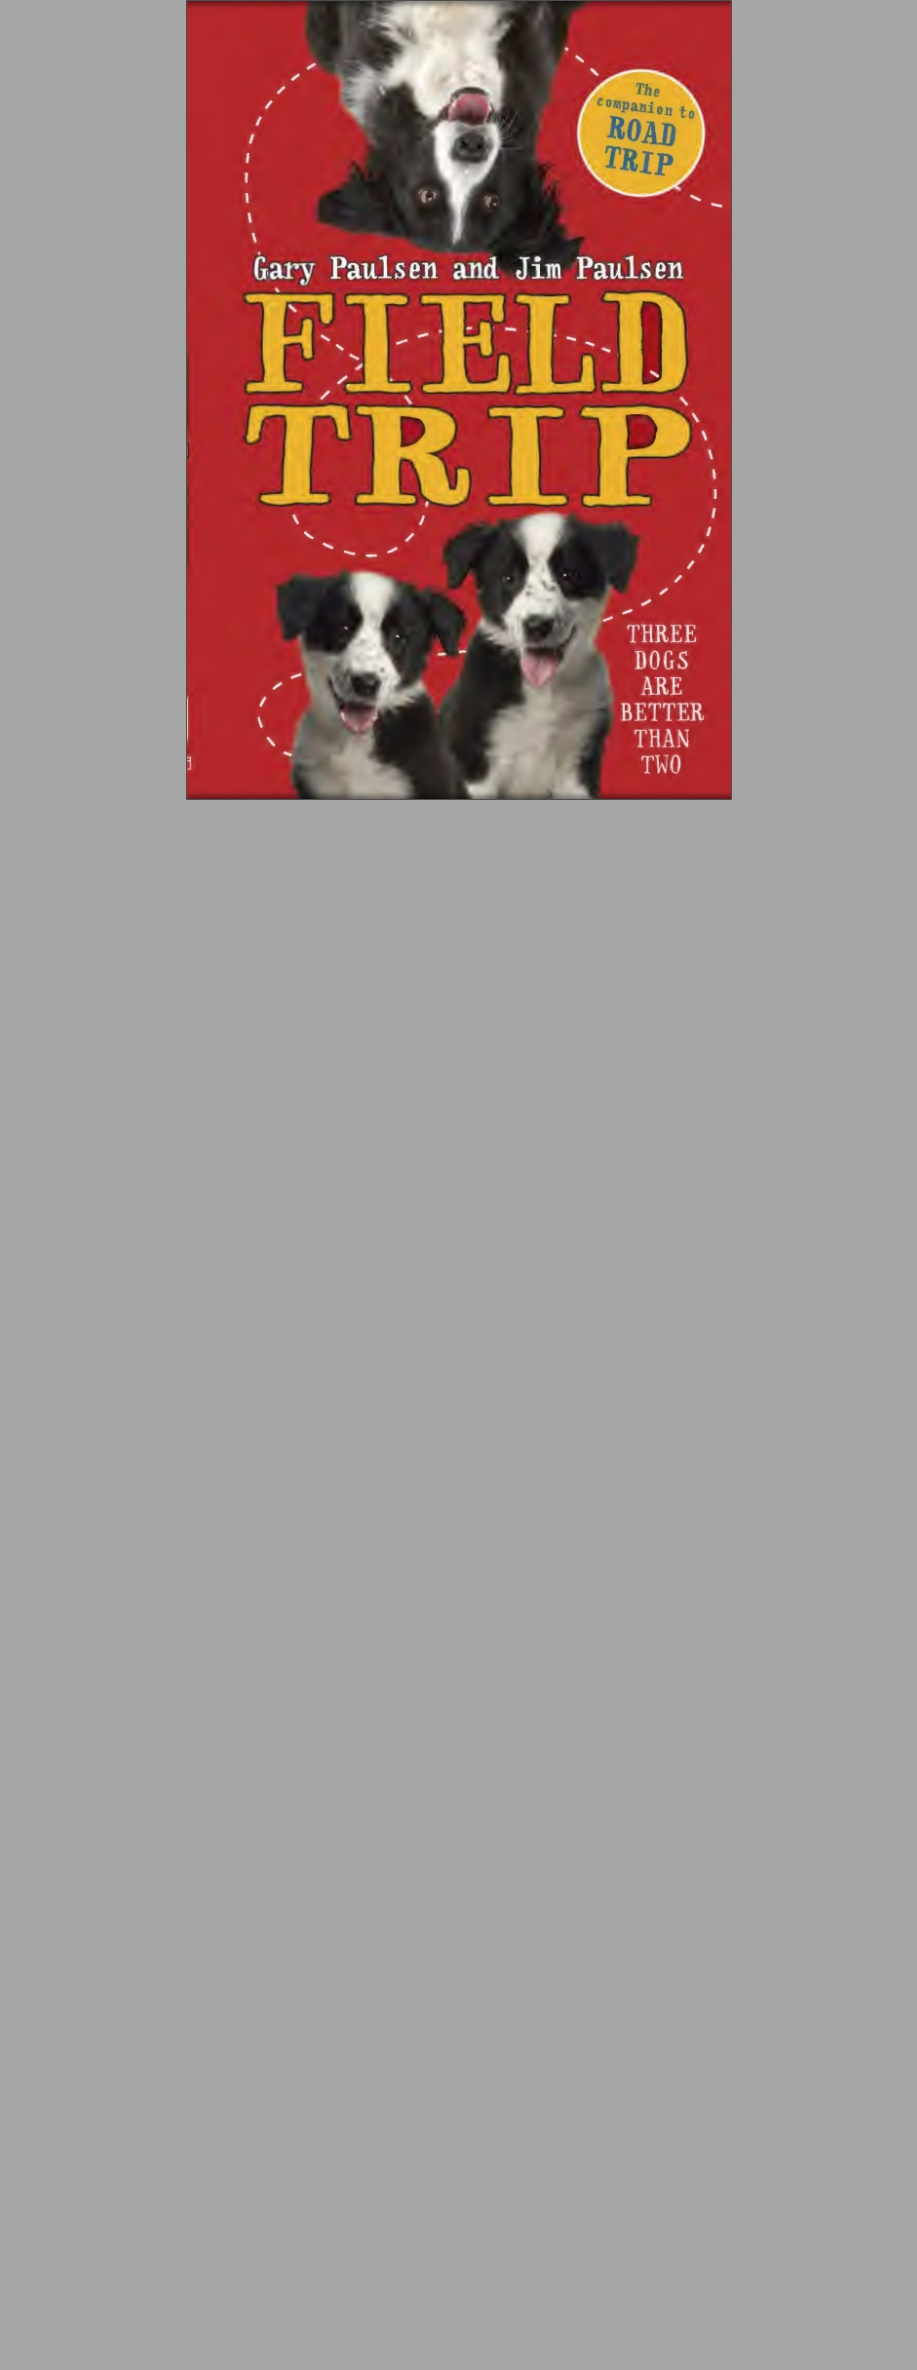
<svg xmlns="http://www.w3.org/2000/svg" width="917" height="2370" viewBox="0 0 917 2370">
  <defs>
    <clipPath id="clip1"><path d="M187 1h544v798H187z"/></clipPath>
  </defs>
  <rect width="100%" height="100%" fill="#a6a6a6"/>
  <path d="M186.5 0.5h545v799H186.5z" fill="none" stroke="#4e4e4e"/>
  <image x="187" y="1" width="544" height="798" href="img/1.png"/>
  <g clip-path="url(#clip1)">
    <path d="M185 -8h548v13H185z" fill="#00000066" filter="blur(2.5px)"/>
    <path d="M185 795h550v38H185z" fill="#00000066" filter="blur(2.5px)"/>
  </g>
</svg>
